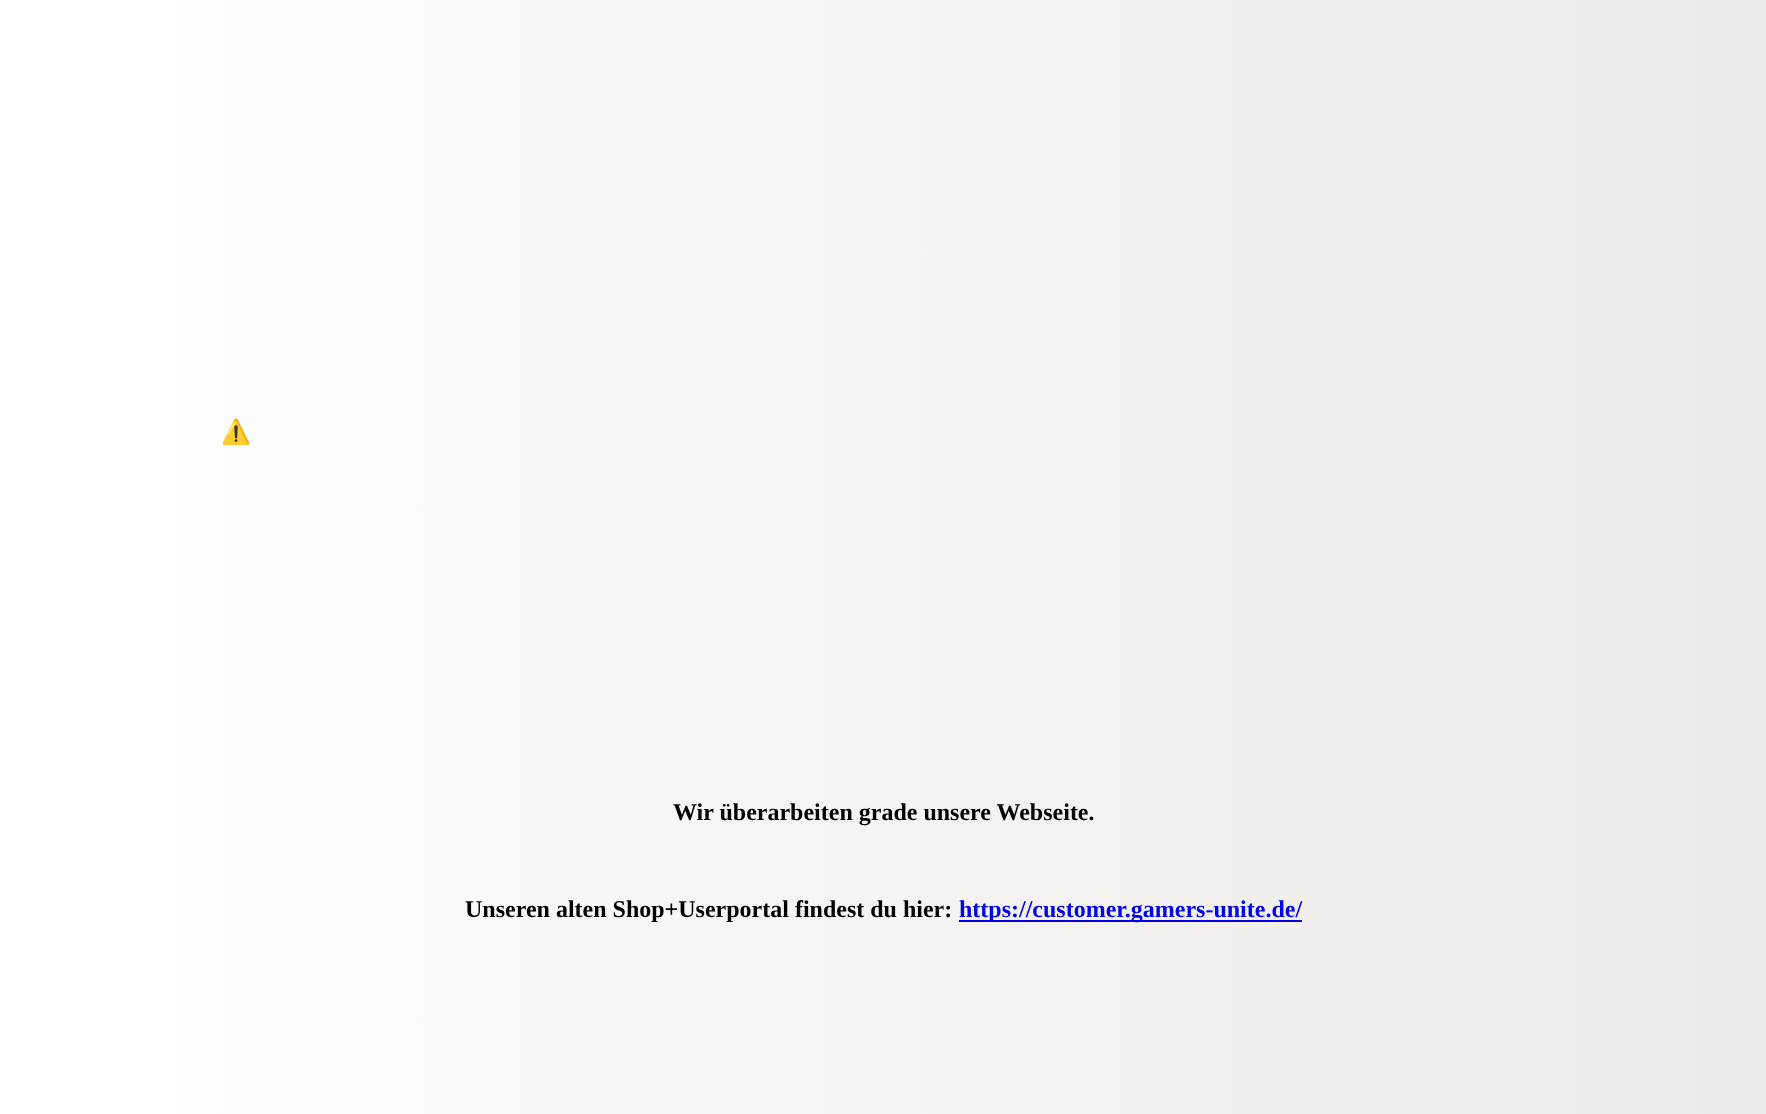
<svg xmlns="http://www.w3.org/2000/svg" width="1766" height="1114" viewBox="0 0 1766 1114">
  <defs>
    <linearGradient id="g1" gradientUnits="userSpaceOnUse" x1="0" y1="557" x2="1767" y2="557"><stop offset="0" stop-color="#fff"/><stop offset="1" stop-color="#ece9e6"/></linearGradient>
  </defs>
  <rect width="100%" height="100%" fill="#fff"/>
  <path d="M177 0h1589v1114H177z" fill="url(#g1)"/>
  <path d="M959 920h343v2H959z" fill="#00e"/>
  <text x="221" y="440" font-family="Noto Color Emoji" font-size="24" fill="#000">⚠️</text>
  <g font-family="Liberation Serif" font-size="24" font-weight="bold" fill="#000">
    <text x="673" y="820">Wir überarbeiten grade unsere Webseite.</text>
    <text x="465" y="917">Unseren alten Shop+Userportal findest du hier:</text>
  </g>
  <text x="959" y="917" font-family="Liberation Serif" font-size="24" font-weight="bold" fill="#00e">https://customer.gamers-unite.de/</text>
</svg>
